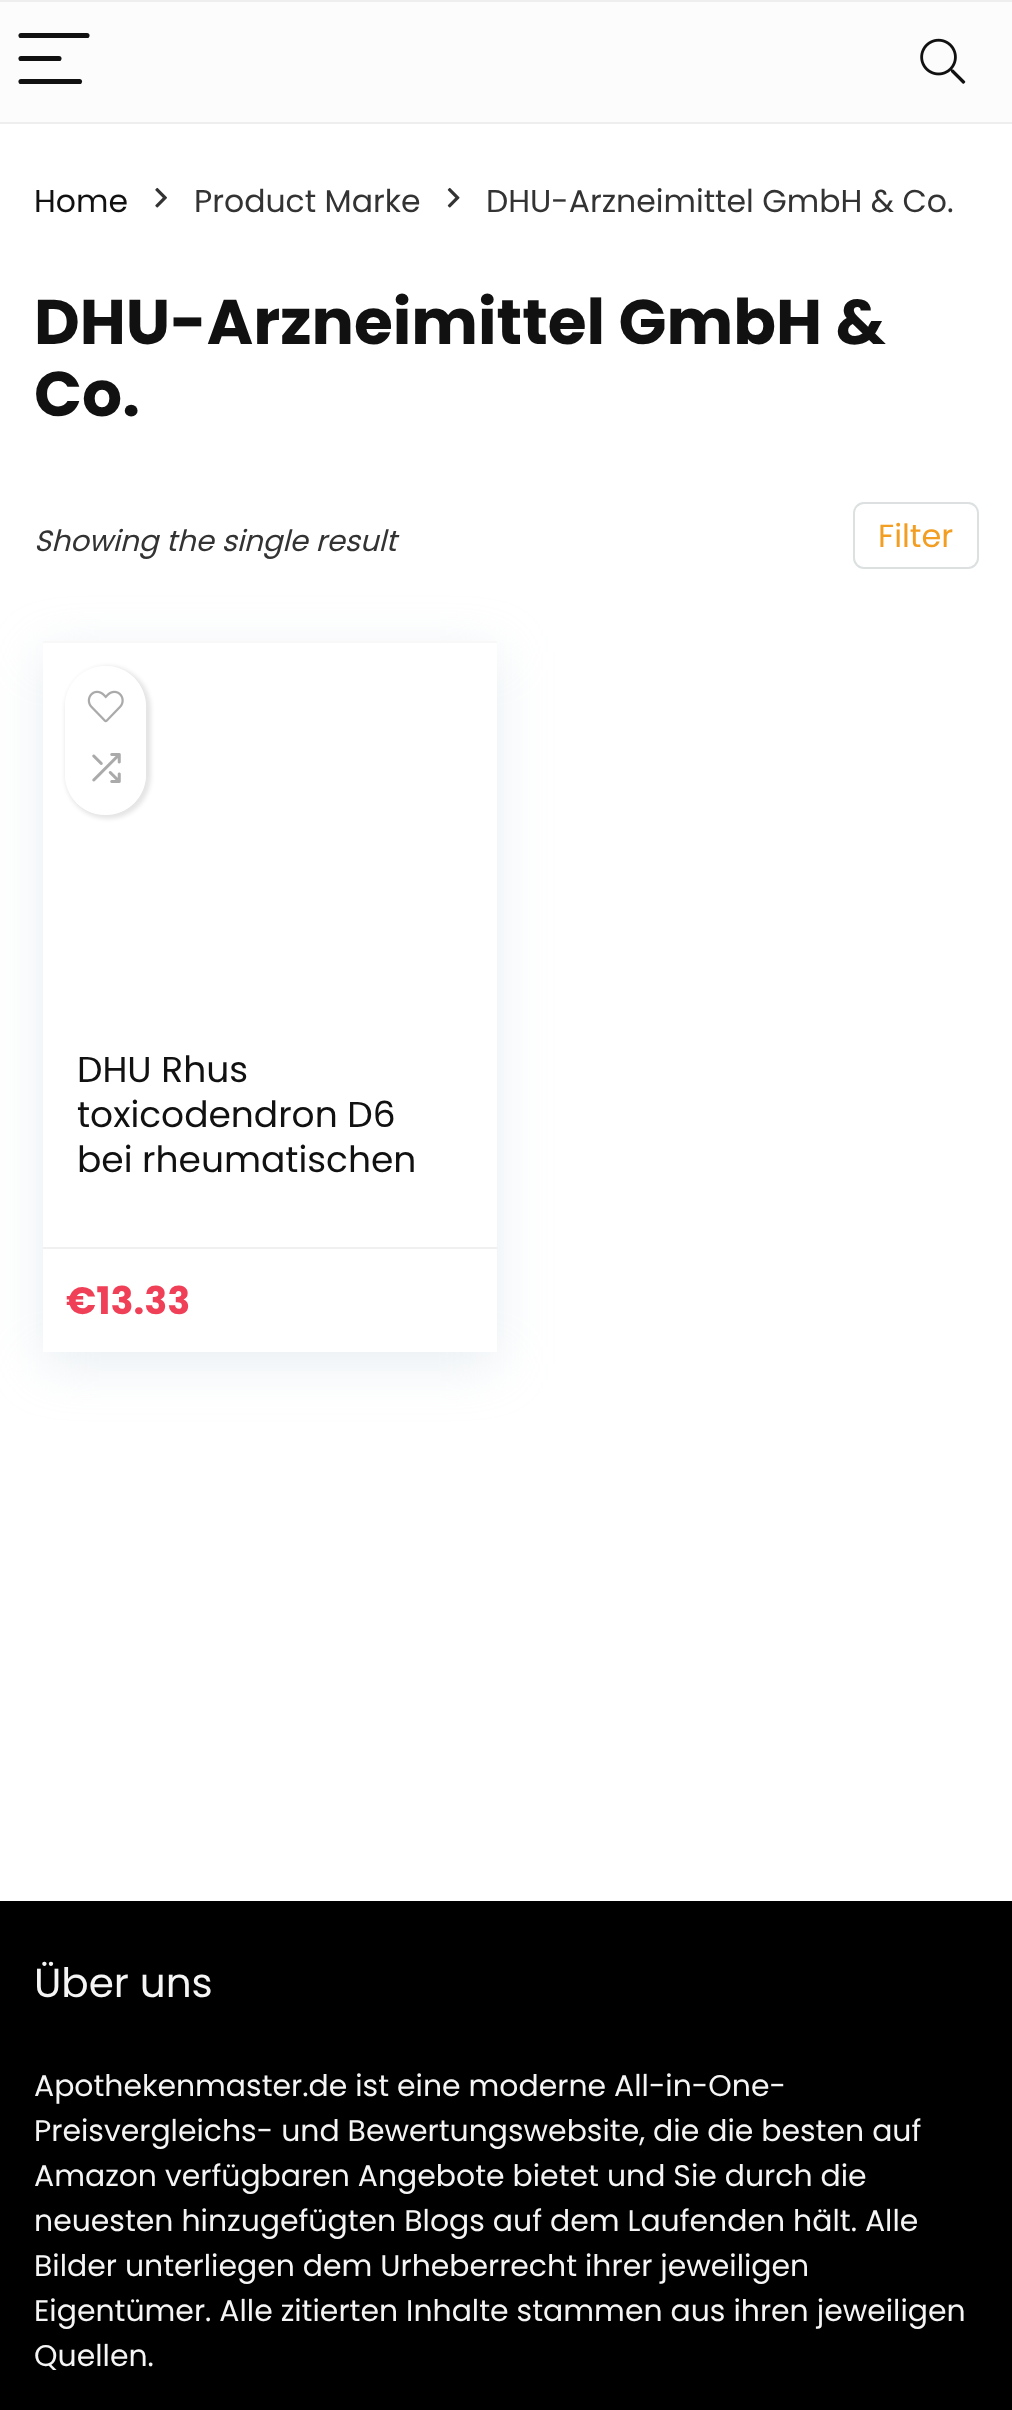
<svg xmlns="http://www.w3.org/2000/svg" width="1012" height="2410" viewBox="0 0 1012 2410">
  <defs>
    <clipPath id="clip1"><path d="M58 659H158V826H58ZM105.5 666C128 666 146 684 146 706.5V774.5C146 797 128 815 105.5 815C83 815 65 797 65 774.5V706.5C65 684 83 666 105.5 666Z" clip-rule="evenodd"/></clipPath>
  </defs>
  <rect width="100%" height="100%" fill="#fff"/>
  <path d="M0 2h1012v120H0z" fill="#fcfcfc"/>
  <path d="M0 0h1012v2H0z" fill="#eee"/>
  <path d="M0 122h1012v2H0z" fill="#eee"/>
  <path d="M21 35.5H87" fill="none" stroke="#111" stroke-width="5.1" stroke-linecap="round"/>
  <path d="M21 58.5H59" fill="none" stroke="#111" stroke-width="5.1" stroke-linecap="round"/>
  <path d="M21 81.5H79.5" fill="none" stroke="#111" stroke-width="5.1" stroke-linecap="round"/>
  <image x="920" y="38" width="46" height="46" href="img/1.png"/>
  <image x="155" y="187" width="12" height="21" href="img/2.png"/>
  <image x="447" y="187" width="13" height="21" href="img/3.png"/>
  <rect x="854" y="503" width="124" height="65" rx="10" fill="none" stroke="#dce0e0" stroke-width="2"/>
  <path d="M43 653h454v711H43z" fill="#bccfdb59" filter="blur(26px)"/>
  <path d="M43 643h454v709H43z" fill="#fff"/>
  <path d="M43 641h454v2H43z" fill="#f8f8f8"/>
  <g clip-path="url(#clip1)">
    <rect x="65" y="666" width="86" height="153" rx="43" fill="#0000001a" filter="blur(2px)"/>
  </g>
  <rect x="65" y="666" width="81" height="149" rx="40.5" fill="#ffffffc7"/>
  <image x="87" y="690" width="37" height="33" href="img/4.png"/>
  <image x="92" y="753" width="29" height="30" href="img/5.png"/>
  <path d="M43 1247h454v2H43z" fill="#f0f0f0"/>
  <path d="M0 1901h1012v509H0z" fill="#000"/>
  <text x="34" y="212" font-family="Poppins" font-size="31.5" fill="#111">Home</text>
  <g font-family="Poppins" font-size="31.5" fill="#333">
    <text x="194" y="212">Product Marke</text>
    <text x="486" y="212">DHU-Arzneimittel GmbH &amp; Co.</text>
  </g>
  <g font-family="Poppins" font-size="63" font-weight="bold" fill="#111">
    <text x="34" y="344">DHU-Arzneimittel GmbH &amp;</text>
    <text x="34" y="416">Co.</text>
  </g>
  <text x="34" y="551" font-family="Poppins" font-size="29.25" font-style="italic" fill="#333">Showing the single result</text>
  <text x="878" y="547" font-family="Poppins" font-size="32" fill="#f29e23">Filter</text>
  <g font-family="Poppins" font-size="36" fill="#111">
    <text x="77" y="1082">DHU Rhus</text>
    <text x="77" y="1127">toxicodendron D6</text>
    <text x="77" y="1172">bei rheumatischen</text>
  </g>
  <text x="66" y="1314" font-family="Poppins" font-size="38" font-weight="bold" fill="#f04057">€13.33</text>
  <text x="34" y="1997" font-family="Poppins" font-size="40.5" fill="#f5f5f5">Über uns</text>
  <g font-family="Poppins" font-size="29.9" fill="#f5f5f5">
    <text x="34" y="2096">Apothekenmaster.de ist eine moderne All-in-One-</text>
    <text x="34" y="2141">Preisvergleichs- und Bewertungswebsite, die die besten auf</text>
    <text x="34" y="2186">Amazon verfügbaren Angebote bietet und Sie durch die</text>
    <text x="34" y="2231">neuesten hinzugefügten Blogs auf dem Laufenden hält. Alle</text>
    <text x="34" y="2276">Bilder unterliegen dem Urheberrecht ihrer jeweiligen</text>
    <text x="34" y="2321">Eigentümer. Alle zitierten Inhalte stammen aus ihren jeweiligen</text>
    <text x="34" y="2366">Quellen.</text>
  </g>
</svg>
